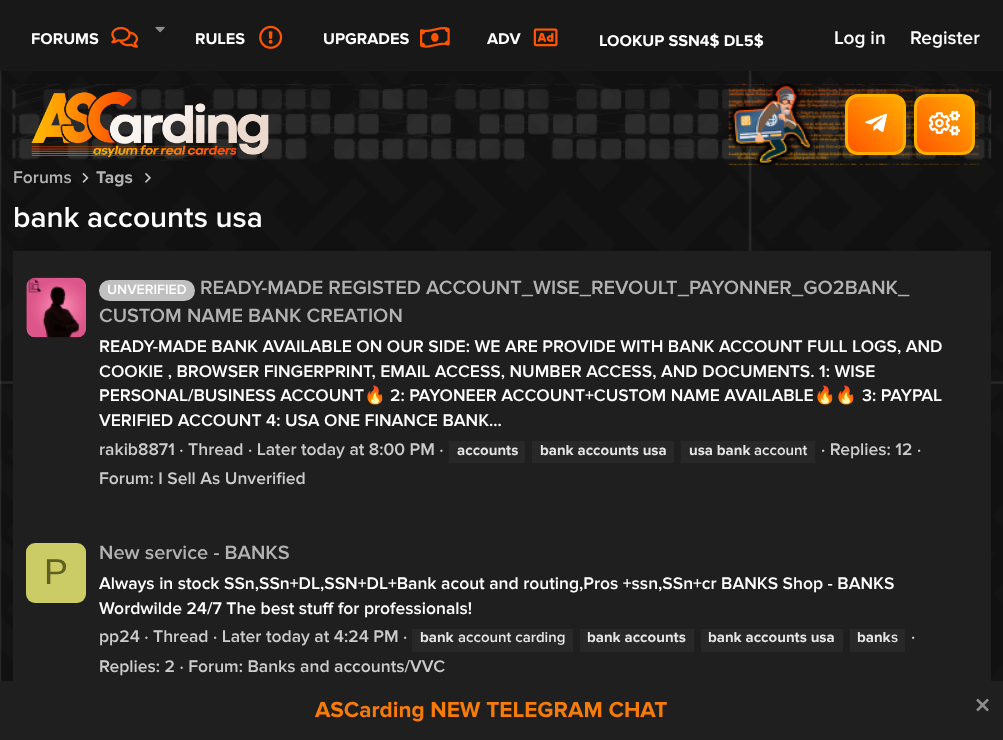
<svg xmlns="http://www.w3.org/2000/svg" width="1003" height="740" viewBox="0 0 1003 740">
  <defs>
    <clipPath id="clip1"><rect x="845" y="94" width="61" height="61" rx="13"/></clipPath>
    <linearGradient id="g1" gradientUnits="userSpaceOnUse" x1="848" y1="153" x2="904" y2="96"><stop offset="0" stop-color="#f50"/><stop offset="1" stop-color="#ffaf00"/></linearGradient>
    <clipPath id="clip2"><rect x="914" y="94" width="61" height="61" rx="13"/></clipPath>
    <linearGradient id="g2" gradientUnits="userSpaceOnUse" x1="916" y1="153" x2="973" y2="96"><stop offset="0" stop-color="#f50"/><stop offset="1" stop-color="#ffaf00"/></linearGradient>
  </defs>
  <rect width="100%" height="100%" fill="#fff"/>
  <image x="0" y="71" width="1003" height="610" href="img/1.png"/>
  <path d="M0 0h1003v71H0z" fill="#181818"/>
  <image x="155" y="26" width="10" height="7" href="img/2.png"/>
  <image x="111" y="27" width="27" height="21" href="img/3.png"/>
  <image x="259" y="25" width="24" height="24" href="img/4.png"/>
  <image x="420" y="27" width="30" height="21" href="img/5.png"/>
  <image x="533" y="28" width="25" height="19" href="img/6.png"/>
  <image x="12" y="84" width="980" height="77" href="img/7.png"/>
  <image x="31" y="91" width="238" height="66" href="img/8.png"/>
  <image x="728" y="83" width="251" height="82" href="img/9.png"/>
  <g clip-path="url(#clip1)">
    <path d="M848 96h56v57H848z" fill="url(#g1)"/>
  </g>
  <rect x="846.5" y="95.5" width="58" height="58" rx="11.5" fill="none" stroke="#ffaf00" stroke-width="3"/>
  <image x="865" y="113" width="22" height="20" href="img/10.png"/>
  <g clip-path="url(#clip2)">
    <path d="M916 96h57v57H916z" fill="url(#g2)"/>
  </g>
  <rect x="915.5" y="95.5" width="58" height="58" rx="11.5" fill="none" stroke="#ffaf00" stroke-width="3"/>
  <image x="928" y="110" width="32" height="26" href="img/11.png"/>
  <image x="82" y="173" width="7" height="10" href="img/12.png"/>
  <image x="145" y="173" width="6" height="10" href="img/13.png"/>
  <path d="M13 251h978v430H13z" fill="#1f1f1f"/>
  <image x="26" y="277" width="60" height="61" href="img/14.png"/>
  <rect x="99" y="280" width="96" height="21" rx="10.5" fill="#c0c0c0"/>
  <path d="M449 441h76v22H449z" fill="#282828"/>
  <path d="M532 441h142v22H532z" fill="#282828"/>
  <path d="M681 441h134v22H681z" fill="#282828"/>
  <rect x="26" y="543" width="60" height="60" rx="9" fill="#cc6"/>
  <path d="M412 629h161v23H412z" fill="#282828"/>
  <path d="M580 629h114v23H580z" fill="#282828"/>
  <path d="M701 629h142v23H701z" fill="#282828"/>
  <path d="M850 629h55v23H850z" fill="#282828"/>
  <path d="M0 681h1003v59H0z" fill="#1f1f1f"/>
  <image x="976" y="698" width="13" height="14" href="img/15.png"/>
  <g font-family="Proxima Nova" font-size="16.25" font-weight="bold" fill="#fefefe">
    <text x="31" y="44">FORUMS</text>
    <text x="195" y="44">RULES</text>
    <text x="323" y="44">UPGRADES</text>
    <text x="487" y="44">ADV</text>
    <text x="599" y="46">LOOKUP SSN4$ DL5$</text>
  </g>
  <g font-family="Proxima Nova" font-size="19" font-weight="600" fill="#fefefe">
    <text x="834" y="44">Log in</text>
    <text x="910" y="44">Register</text>
  </g>
  <text x="13" y="183" font-family="Proxima Nova" font-size="17.5" font-weight="600" fill="#b2b2b2">Forums</text>
  <text x="96" y="183" font-family="Proxima Nova" font-size="17.5" font-weight="bold" fill="#b2b2b2">Tags</text>
  <text x="13" y="227" font-family="Proxima Nova" font-size="30" font-weight="600" fill="#fefefe">bank accounts usa</text>
  <text x="107" y="294" font-family="Proxima Nova" font-size="14" font-weight="600" fill="#fefefe">UNVERIFIED</text>
  <g font-family="Proxima Nova" font-size="20" font-weight="600" fill="#b2b2b2">
    <text x="200" y="294">READY-MADE REGISTED ACCOUNT_WISE_REVOULT_PAYONNER_GO2BANK_</text>
    <text x="99" y="322">CUSTOM NAME BANK CREATION</text>
  </g>
  <g font-family="Proxima Nova" font-size="17.5" font-weight="600" fill="#fefefe">
    <text x="99" y="352">READY-MADE BANK AVAILABLE ON OUR SIDE: WE ARE PROVIDE WITH BANK ACCOUNT FULL LOGS, AND</text>
    <text x="99" y="377">COOKIE , BROWSER FINGERPRINT, EMAIL ACCESS, NUMBER ACCESS, AND DOCUMENTS. 1: WISE</text>
    <text x="99" y="401">PERSONAL/BUSINESS ACCOUNT</text>
  </g>
  <text x="364" y="401" font-family="Noto Color Emoji" font-size="17.5" font-weight="bold" fill="#fefefe">🔥</text>
  <text x="390" y="401" font-family="Proxima Nova" font-size="17.5" font-weight="600" fill="#fefefe">2: PAYONEER ACCOUNT+CUSTOM NAME AVAILABLE</text>
  <text x="814" y="401" font-family="Noto Color Emoji" font-size="17.5" font-weight="bold" fill="#fefefe">🔥🔥</text>
  <g font-family="Proxima Nova" font-size="17.5" font-weight="600" fill="#fefefe">
    <text x="862" y="401">3: PAYPAL</text>
    <text x="99" y="426">VERIFIED ACCOUNT 4: USA ONE FINANCE BANK...</text>
  </g>
  <text x="99" y="455" font-family="Proxima Nova" font-size="17.5" font-weight="600" fill="#cbcbcb">rakib8871 · Thread · Later today at 8:00 PM ·</text>
  <g font-family="Proxima Nova" font-size="15" font-weight="bold" fill="#e5e5e5">
    <text x="457" y="455">accounts</text>
    <text x="540" y="455">bank accounts usa</text>
    <text x="689" y="455">usa bank</text>
  </g>
  <text x="754" y="455" font-family="Proxima Nova" font-size="15" font-weight="600" fill="#e5e5e5">account</text>
  <g font-family="Proxima Nova" font-size="17.5" font-weight="600" fill="#cbcbcb">
    <text x="821" y="455">· Replies: 12 ·</text>
    <text x="99" y="484">Forum: I Sell As Unverified</text>
  </g>
  <text x="44" y="584" font-family="Liberation Sans" font-size="36" fill="#606020">P</text>
  <text x="99" y="559" font-family="Proxima Nova" font-size="20" font-weight="600" fill="#b2b2b2">New service - BANKS</text>
  <g font-family="Proxima Nova" font-size="17.5" font-weight="600" fill="#fefefe">
    <text x="99" y="589">Always in stock SSn,SSn+DL,SSN+DL+Bank acout and routing,Pros +ssn,SSn+cr BANKS Shop - BANKS</text>
    <text x="99" y="614">Wordwilde 24/7 The best stuff for professionals!</text>
  </g>
  <text x="99" y="642" font-family="Proxima Nova" font-size="17.5" font-weight="600" fill="#cbcbcb">pp24 · Thread · Later today at 4:24 PM ·</text>
  <text x="420" y="642" font-family="Proxima Nova" font-size="15" font-weight="bold" fill="#e5e5e5">bank</text>
  <text x="458" y="642" font-family="Proxima Nova" font-size="15" font-weight="600" fill="#e5e5e5">account carding</text>
  <g font-family="Proxima Nova" font-size="15" font-weight="bold" fill="#e5e5e5">
    <text x="587" y="642">bank accounts</text>
    <text x="708" y="642">bank accounts usa</text>
    <text x="857" y="642">bank</text>
  </g>
  <text x="891" y="642" font-family="Proxima Nova" font-size="15" font-weight="600" fill="#e5e5e5">s</text>
  <g font-family="Proxima Nova" font-size="17.5" font-weight="600" fill="#cbcbcb">
    <text x="911" y="642">·</text>
    <text x="99" y="672">Replies: 2 · Forum: Banks and accounts/VVC</text>
  </g>
  <text x="315" y="717" font-family="Proxima Nova" font-size="22.5" font-weight="bold" fill="#f67c0a">ASCarding NEW TELEGRAM CHAT</text>
</svg>
